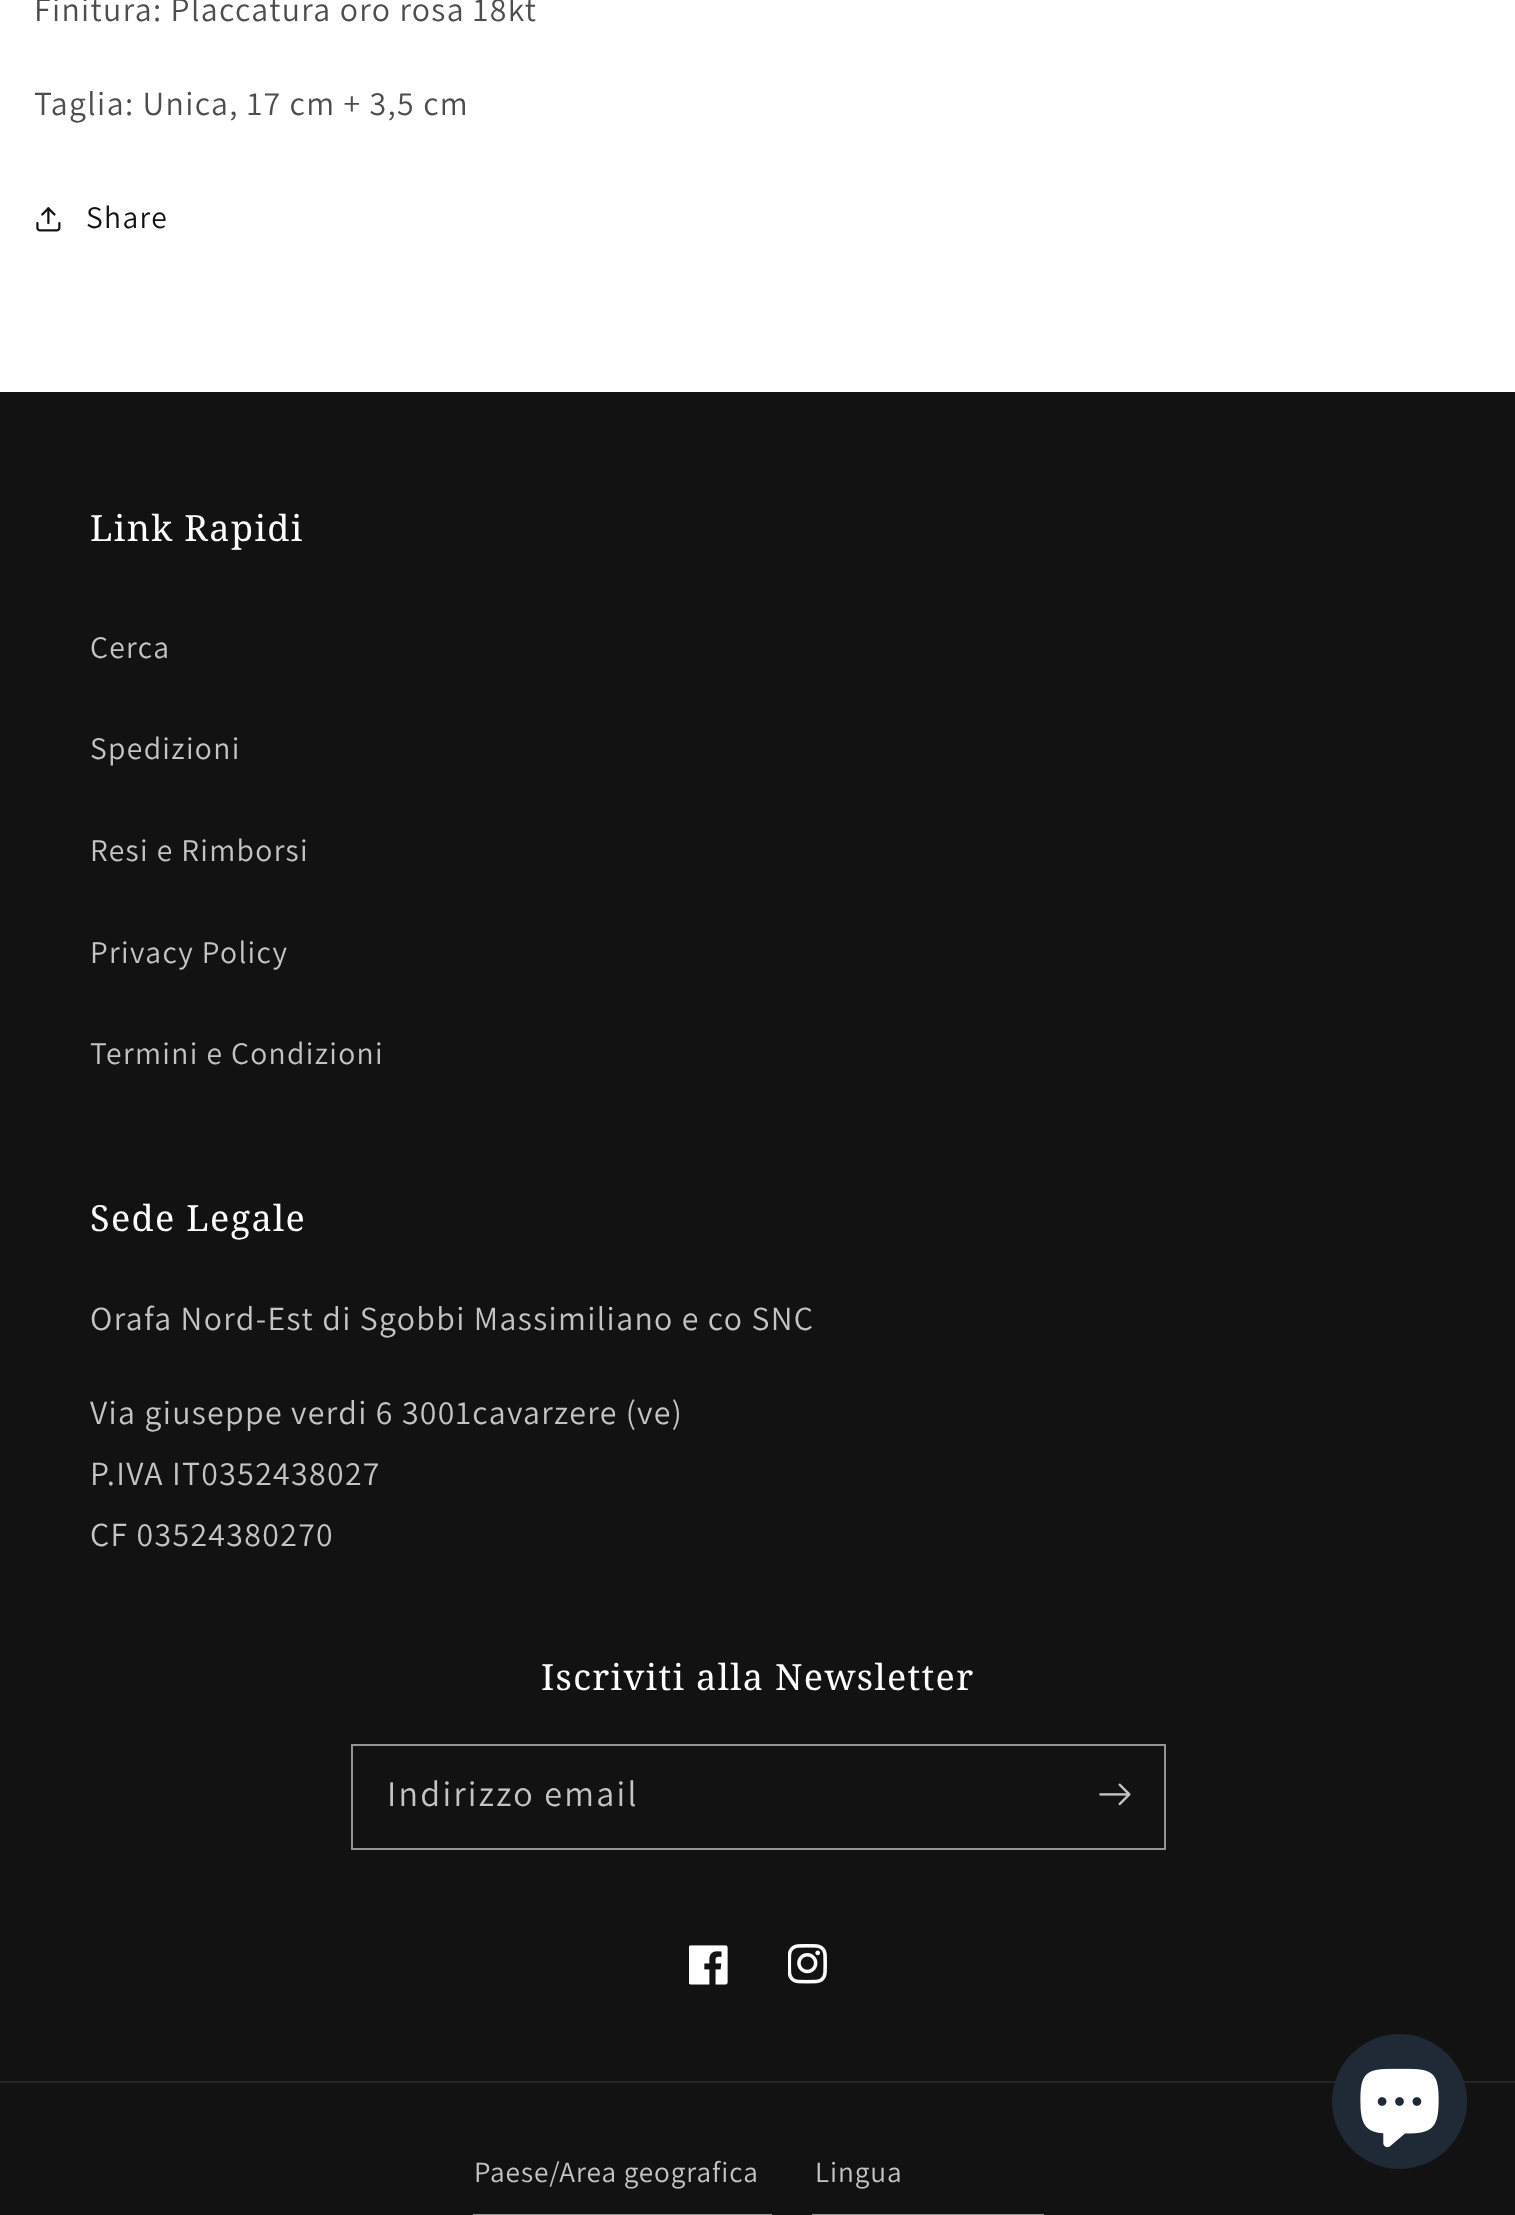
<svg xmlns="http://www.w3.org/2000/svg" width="1515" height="2215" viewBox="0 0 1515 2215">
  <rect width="100%" height="100%" fill="#fff"/>
  <image x="36" y="207" width="25" height="25" href="img/1.png"/>
  <path d="M0 392h1515v1823H0z" fill="#121212"/>
  <path d="M352 1745h813v104H352z" fill="none" stroke="#949494" stroke-width="2"/>
  <image x="1099" y="1783" width="32" height="23" href="img/2.png"/>
  <image x="689" y="1945" width="39" height="40" href="img/3.png"/>
  <image x="788" y="1944" width="39" height="40" href="img/4.png"/>
  <path d="M0 2081h1515v2H0z" fill="#252525"/>
  <path d="M474 2215h297v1H474z" fill="none" stroke="#949494" stroke-width="2"/>
  <path d="M813 2215h230v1H813z" fill="none" stroke="#949494" stroke-width="2"/>
  <circle cx="1399.5" cy="2101.5" r="67.5" fill="#202a36"/>
  <image x="1360" y="2068" width="79" height="80" href="img/5.png"/>
  <g font-family="Assistant" font-size="33.75" letter-spacing="1.35" fill="#4d4d4d">
    <text x="34" y="21">Finitura: Placcatura oro rosa 18kt</text>
    <text x="34" y="115">Taglia: Unica, 17 cm + 3,5 cm</text>
  </g>
  <text x="86" y="228" font-family="Assistant" font-size="31.5" letter-spacing="1.35" fill="#121212">Share</text>
  <text x="90" y="541" font-family="Noto Serif" font-size="36" letter-spacing="1.35" fill="#fff">Link Rapidi</text>
  <g font-family="Assistant" font-size="31.5" letter-spacing="1.35" fill="#c4c4c4">
    <text x="90" y="658">Cerca</text>
    <text x="90" y="759">Spedizioni</text>
    <text x="90" y="861">Resi e Rimborsi</text>
    <text x="90" y="963">Privacy Policy</text>
    <text x="90" y="1064">Termini e Condizioni</text>
  </g>
  <text x="90" y="1231" font-family="Noto Serif" font-size="36" letter-spacing="1.35" fill="#fff">Sede Legale</text>
  <g font-family="Assistant" font-size="33.75" letter-spacing="1.35" fill="#c4c4c4">
    <text x="90" y="1330">Orafa Nord-Est di Sgobbi Massimiliano e co SNC</text>
    <text x="90" y="1424">Via giuseppe verdi 6 3001cavarzere (ve)</text>
    <text x="90" y="1485">P.IVA IT0352438027</text>
    <text x="90" y="1546">CF 03524380270</text>
  </g>
  <text x="541" y="1690" font-family="Noto Serif" font-size="36" letter-spacing="1.35" fill="#fff">Iscriviti alla Newsletter</text>
  <text x="387" y="1806" font-family="Assistant" font-size="36" letter-spacing="2.25" fill="#c4c4c4">Indirizzo email</text>
  <g font-family="Assistant" font-size="29.25" letter-spacing="0.9" fill="#c4c4c4">
    <text x="474" y="2182">Paese/Area geografica</text>
    <text x="815" y="2182">Lingua</text>
  </g>
</svg>
